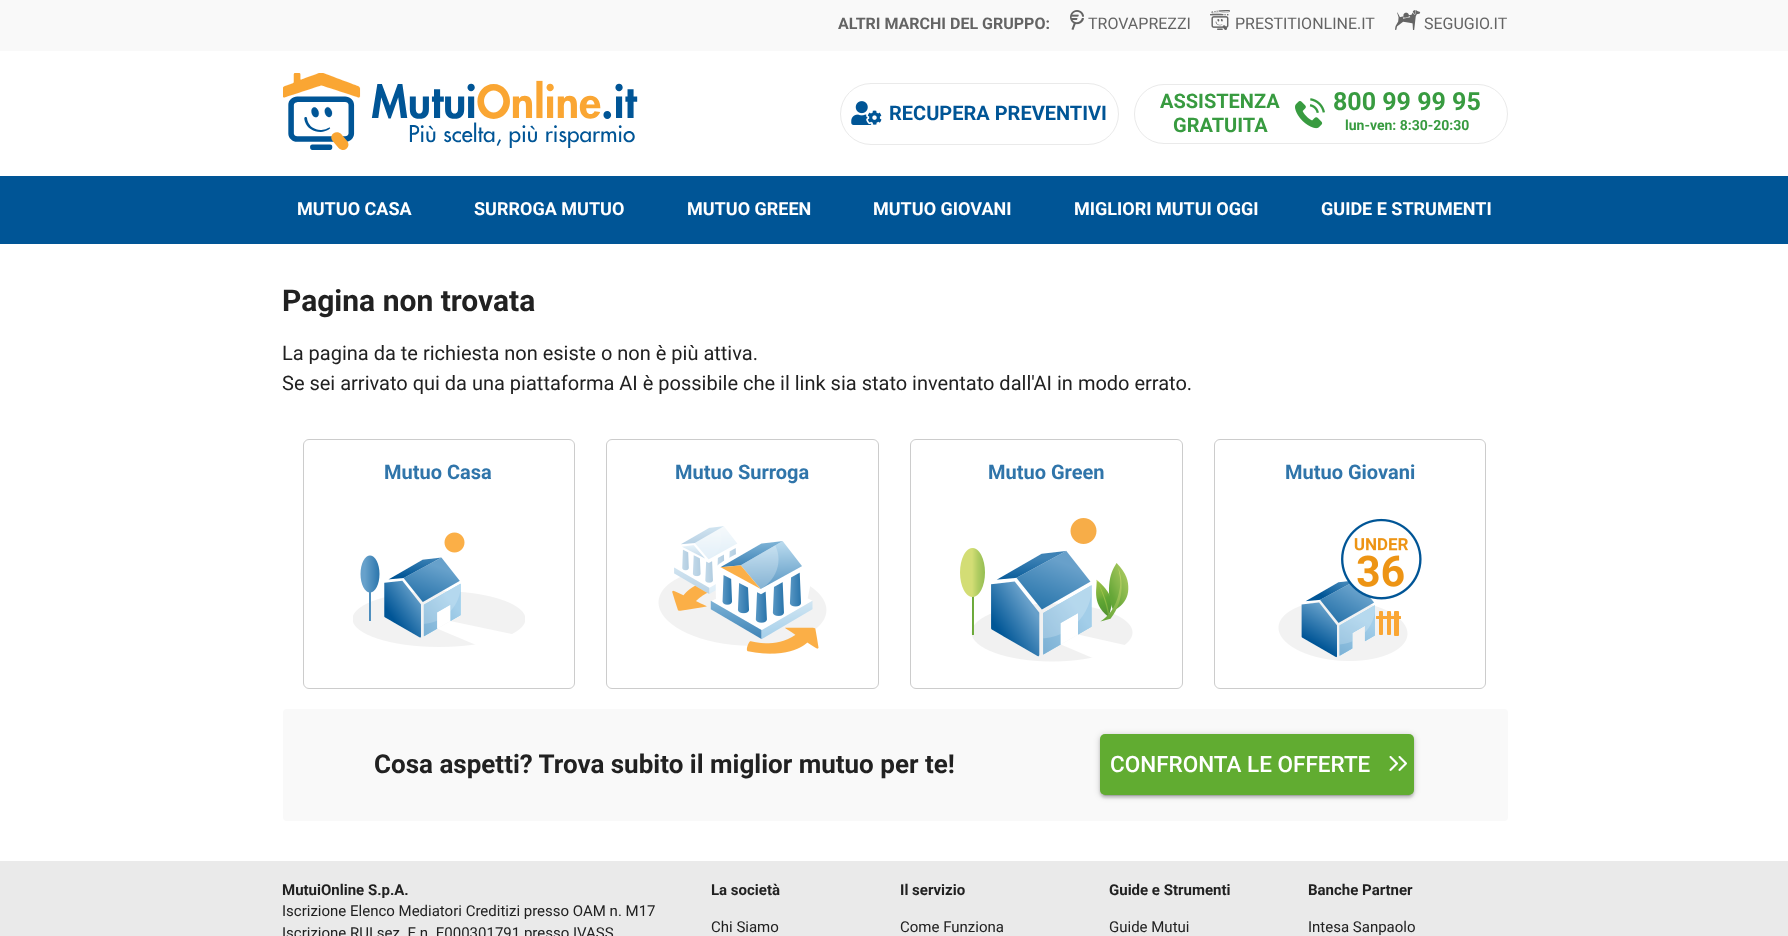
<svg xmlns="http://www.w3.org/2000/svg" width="1788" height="936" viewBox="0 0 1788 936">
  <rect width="100%" height="100%" fill="#fff"/>
  <path d="M0 0h1788v51H0z" fill="#f9f9f9"/>
  <image x="1070" y="10" width="14" height="20" href="img/1.png"/>
  <image x="1210" y="10" width="20" height="20" href="img/2.png"/>
  <image x="1395" y="10" width="26" height="20" href="img/3.png"/>
  <image x="283" y="73" width="355" height="77" href="img/4.png"/>
  <rect x="840.5" y="83.5" width="278" height="61" rx="30.5" fill="none" stroke="#eaeaea"/>
  <image x="851" y="101" width="31" height="24" href="img/5.png"/>
  <rect x="1134.5" y="84.5" width="373" height="59" rx="29.5" fill="none" stroke="#eaeaea"/>
  <image x="1295" y="98" width="30" height="31" href="img/6.png"/>
  <path d="M0 176h1788v68H0z" fill="#005596"/>
  <rect x="303.5" y="439.5" width="271" height="249" rx="5.5" fill="none" stroke="#ccc"/>
  <image x="353" y="532" width="172" height="115" href="img/7.png"/>
  <rect x="606.5" y="439.5" width="272" height="249" rx="5.5" fill="none" stroke="#ccc"/>
  <image x="658" y="526" width="169" height="128" href="img/8.png"/>
  <rect x="910.5" y="439.5" width="272" height="249" rx="5.5" fill="none" stroke="#ccc"/>
  <image x="960" y="518" width="173" height="144" href="img/9.png"/>
  <rect x="1214.5" y="439.5" width="271" height="249" rx="5.5" fill="none" stroke="#ccc"/>
  <image x="1278" y="518" width="144" height="143" href="img/10.png"/>
  <rect x="283" y="709" width="1225" height="112" rx="4" fill="#f9f9f9"/>
  <rect x="1100" y="735" width="314" height="61" rx="5" fill="#00000033" filter="blur(3px)"/>
  <rect x="1103" y="740" width="308" height="56" rx="2.5" fill="#0000001f" filter="blur(0.5px)"/>
  <rect x="1100" y="736" width="314" height="62" rx="5" fill="#00000024" filter="blur(1px)"/>
  <rect x="1100" y="734" width="314" height="61" rx="5" fill="#61ac31"/>
  <image x="1389" y="756" width="18" height="15" href="img/11.png"/>
  <path d="M0 861h1788v75H0z" fill="#eaeaea"/>
  <text x="838" y="29" font-family="Roboto" font-size="16" font-weight="bold" fill="#646464">ALTRI MARCHI DEL GRUPPO:</text>
  <g font-family="Roboto" font-size="16" fill="#646464">
    <text x="1088" y="29">TROVAPREZZI</text>
    <text x="1235" y="29">PRESTITIONLINE.IT</text>
    <text x="1424" y="29">SEGUGIO.IT</text>
  </g>
  <text x="889" y="120" font-family="Roboto" font-size="20" font-weight="bold" fill="#005596">RECUPERA PREVENTIVI</text>
  <g font-family="Roboto" font-size="20" font-weight="bold" fill="#389b40">
    <text x="1160" y="108">ASSISTENZA</text>
    <text x="1173" y="132">GRATUITA</text>
  </g>
  <text x="1333" y="110" font-family="Roboto" font-size="25" font-weight="bold" fill="#389b40">800 99 99 95</text>
  <text x="1345" y="130" font-family="Roboto" font-size="14" font-weight="bold" fill="#389b40">lun-ven: 8:30-20:30</text>
  <g font-family="Roboto" font-size="18" font-weight="bold" fill="#fff">
    <text x="297" y="215">MUTUO CASA</text>
    <text x="474" y="215">SURROGA MUTUO</text>
    <text x="687" y="215">MUTUO GREEN</text>
    <text x="873" y="215">MUTUO GIOVANI</text>
    <text x="1074" y="215">MIGLIORI MUTUI OGGI</text>
    <text x="1321" y="215">GUIDE E STRUMENTI</text>
  </g>
  <text x="282" y="311" font-family="Roboto" font-size="30" font-weight="bold" fill="#212121">Pagina non trovata</text>
  <g font-family="Roboto" font-size="20" fill="#212121">
    <text x="282" y="360">La pagina da te richiesta non esiste o non è più attiva.</text>
    <text x="282" y="390">Se sei arrivato qui da una piattaforma AI è possibile che il link sia stato inventato dall'AI in modo errato.</text>
  </g>
  <g font-family="Roboto" font-size="20" font-weight="bold" fill="#3075aa">
    <text x="384" y="479">Mutuo Casa</text>
    <text x="675" y="479">Mutuo Surroga</text>
    <text x="988" y="479">Mutuo Green</text>
    <text x="1285" y="479">Mutuo Giovani</text>
  </g>
  <text x="374" y="773" font-family="Roboto" font-size="26" font-weight="bold" fill="#212121">Cosa aspetti? Trova subito il miglior mutuo per te!</text>
  <text x="1110" y="772" font-family="Roboto" font-size="22.5" font-weight="500" fill="#fff">CONFRONTA LE OFFERTE</text>
  <text x="282" y="895" font-family="Roboto" font-size="15" font-weight="bold" fill="#212121">MutuiOnline S.p.A.</text>
  <g font-family="Roboto" font-size="15" fill="#212121">
    <text x="282" y="916">Iscrizione Elenco Mediatori Creditizi presso OAM n. M17</text>
    <text x="282" y="938">Iscrizione RUI sez. E n. E000301791 presso IVASS</text>
  </g>
  <text x="711" y="895" font-family="Roboto" font-size="15" font-weight="bold" fill="#212121">La società</text>
  <text x="711" y="932" font-family="Roboto" font-size="15" fill="#212121">Chi Siamo</text>
  <text x="900" y="895" font-family="Roboto" font-size="15" font-weight="bold" fill="#212121">Il servizio</text>
  <text x="900" y="932" font-family="Roboto" font-size="15" fill="#212121">Come Funziona</text>
  <text x="1109" y="895" font-family="Roboto" font-size="15" font-weight="bold" fill="#212121">Guide e Strumenti</text>
  <text x="1109" y="932" font-family="Roboto" font-size="15" fill="#212121">Guide Mutui</text>
  <text x="1308" y="895" font-family="Roboto" font-size="15" font-weight="bold" fill="#212121">Banche Partner</text>
  <text x="1308" y="932" font-family="Roboto" font-size="15" fill="#212121">Intesa Sanpaolo</text>
</svg>
